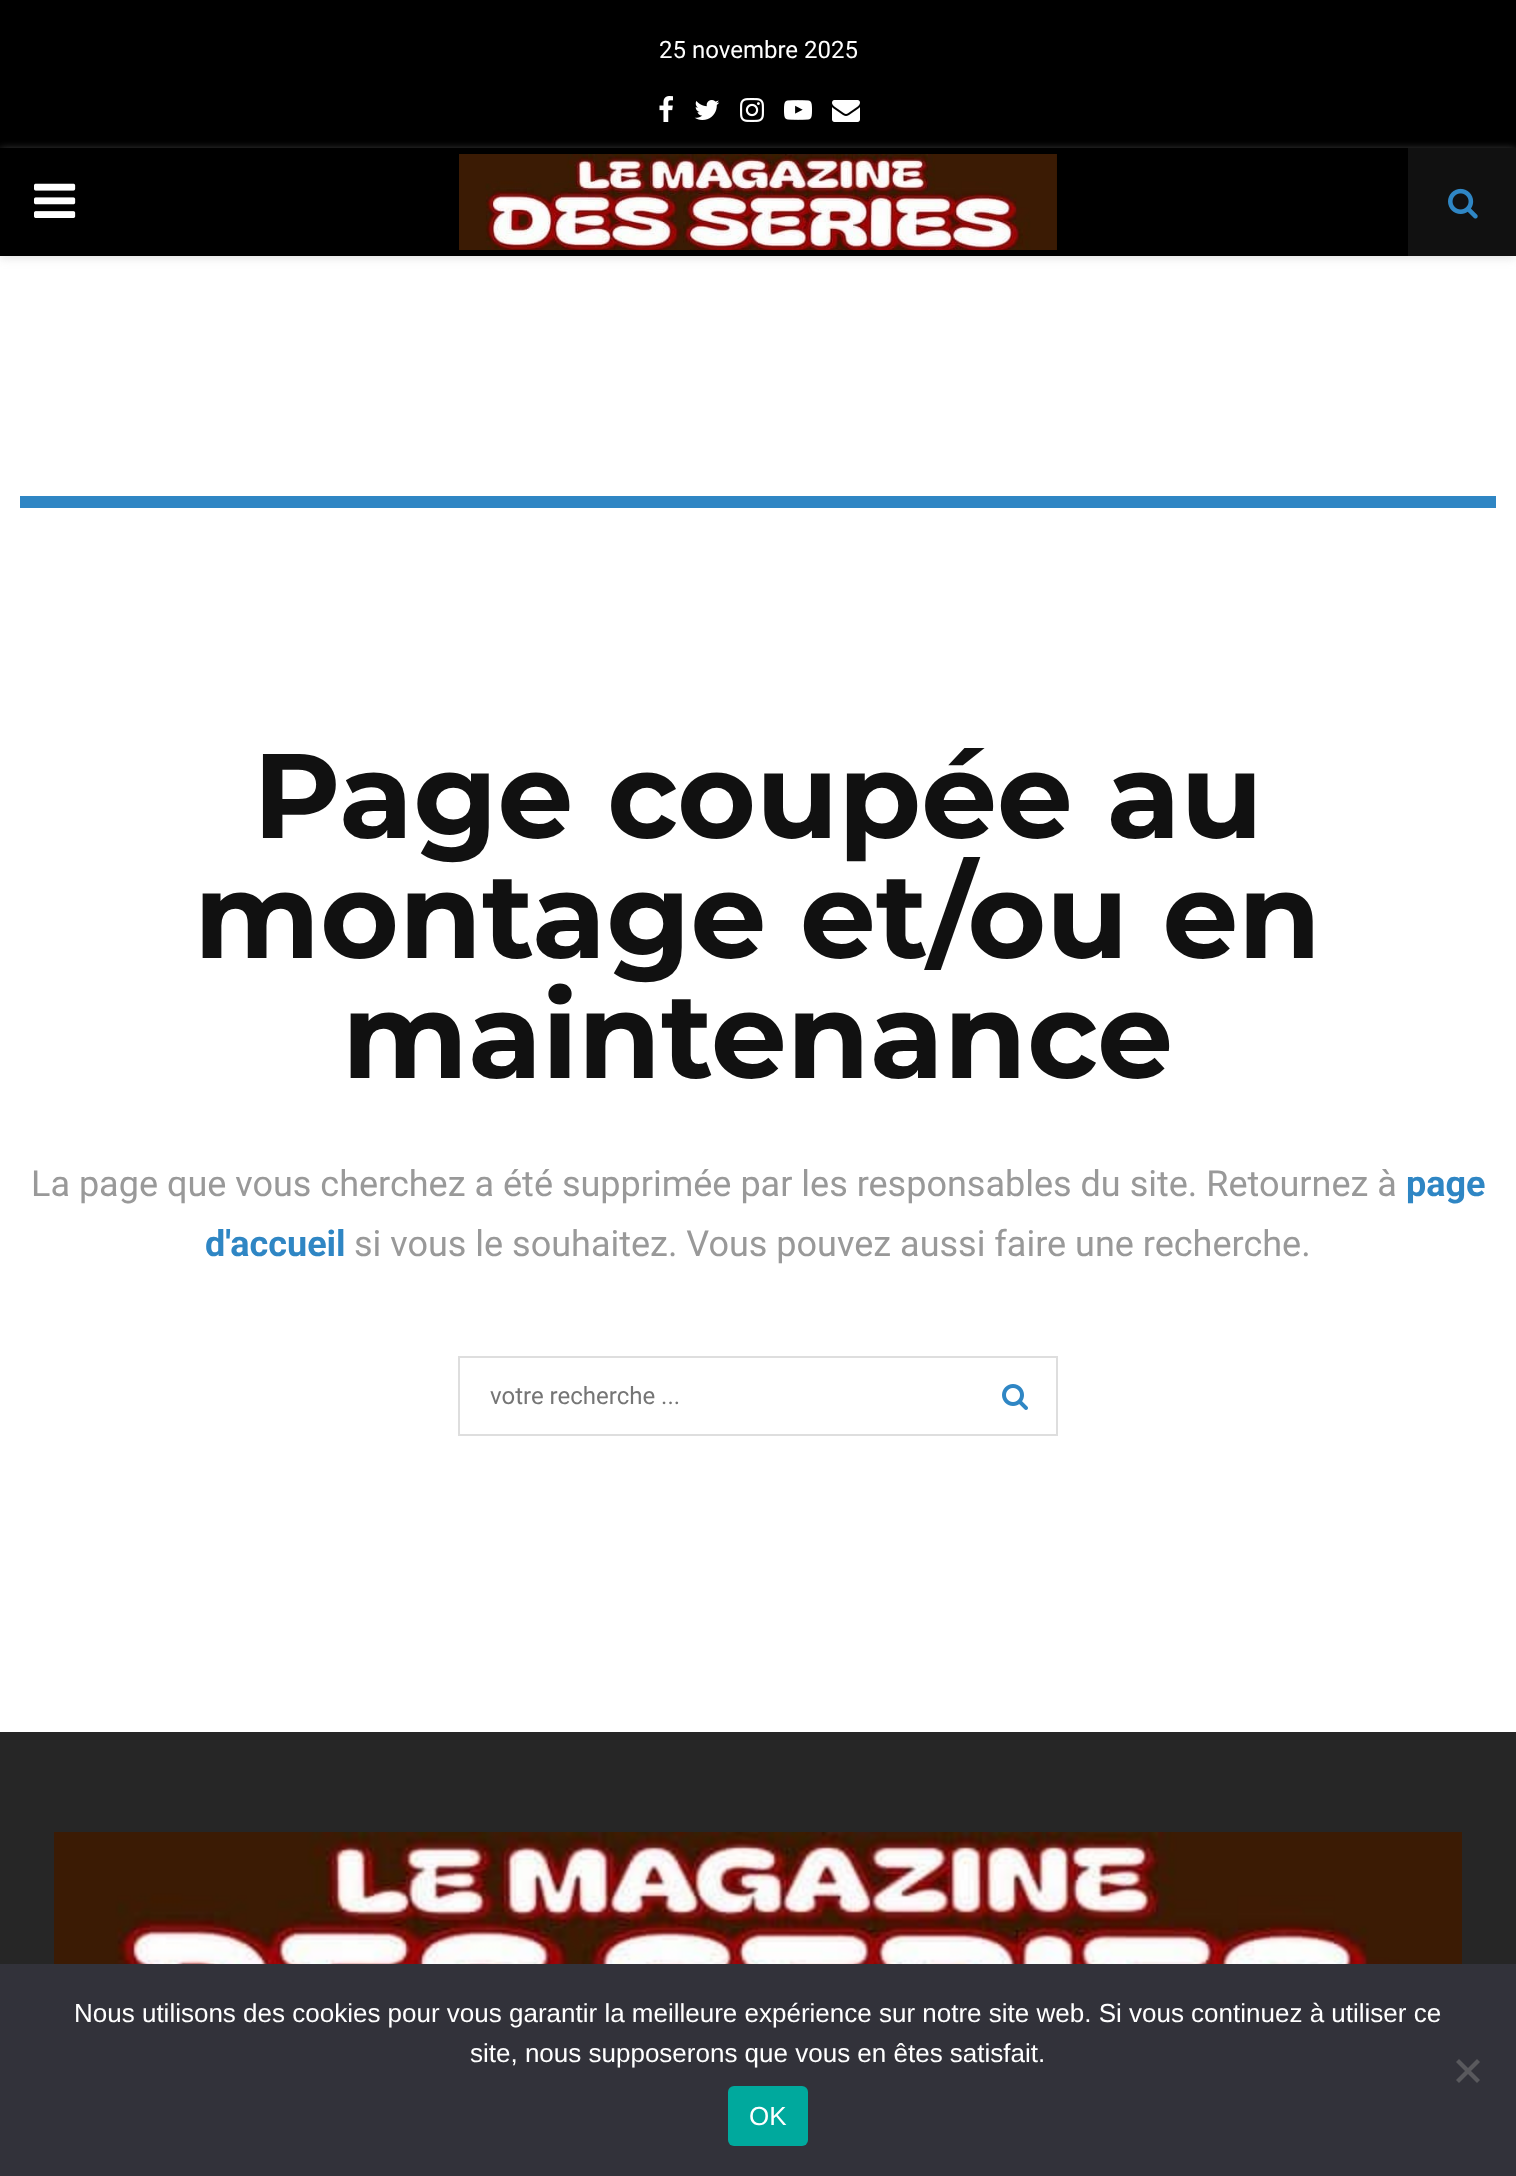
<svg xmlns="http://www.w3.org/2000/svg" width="1516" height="2176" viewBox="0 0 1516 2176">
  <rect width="100%" height="100%" fill="#fff"/>
  <path d="M0 0h1516v148H0z" fill="#000"/>
  <image x="659" y="96" width="14" height="26" href="img/1.png"/>
  <image x="694" y="100" width="26" height="20" href="img/2.png"/>
  <image x="740" y="98" width="24" height="24" href="img/3.png"/>
  <image x="784" y="100" width="28" height="20" href="img/4.png"/>
  <image x="832" y="100" width="28" height="22" href="img/5.png"/>
  <path d="M0 150h1516v108H0z" fill="#bebebe75" filter="blur(5px)"/>
  <path d="M0 148h1408v108H0z" fill="#000"/>
  <image x="34" y="183" width="42" height="35" href="img/6.png"/>
  <image x="459" y="154" width="598" height="96" href="img/7.png"/>
  <path d="M1408 148h108v108H1408z" fill="#111"/>
  <image x="1448" y="188" width="30" height="31" href="img/8.png"/>
  <path d="M20 496h1476v12H20z" fill="#2f86c4"/>
  <path d="M459 1357h598v78H459z" fill="none" stroke="#dedede" stroke-width="2"/>
  <image x="1002" y="1384" width="26" height="26" href="img/9.png"/>
  <path d="M0 1732h1516v232H0z" fill="#262626"/>
  <image x="54" y="1832" width="1408" height="132" href="img/10.png"/>
  <path d="M0 1964h1516v212H0z" fill="#32323a"/>
  <path d="M1477 2059L1480 2062L1459 2083L1456 2080Z" fill="#59595d"/>
  <path d="M1456 2062L1459 2059L1480 2080L1477 2083Z" fill="#59595d"/>
  <rect x="728" y="2086" width="80" height="60" rx="6" fill="#00a99d"/>
  <text x="659" y="58" font-family="Roboto" font-size="24" fill="#fff">25 novembre 2025</text>
  <g font-family="Montserrat" font-size="120" font-weight="bold" fill="#111">
    <text x="253" y="838">Page coupée au</text>
    <text x="194" y="958">montage et/ou en</text>
    <text x="342" y="1078">maintenance</text>
  </g>
  <text x="31" y="1196" font-family="Roboto" font-size="36" fill="#999">La page que vous cherchez a été supprimée par les responsables du site. Retournez à</text>
  <g font-family="Roboto" font-size="36" font-weight="bold" fill="#2f86c4">
    <text x="1406" y="1196">page</text>
    <text x="205" y="1256">d'accueil</text>
  </g>
  <text x="354" y="1256" font-family="Roboto" font-size="36" fill="#999">si vous le souhaitez. Vous pouvez aussi faire une recherche.</text>
  <text x="490" y="1404" font-family="Roboto" font-size="24" fill="#757575">votre recherche ...</text>
  <g font-family="Liberation Sans" font-size="26" fill="#fff">
    <text x="74" y="2022">Nous utilisons des cookies pour vous garantir la meilleure expérience sur notre site web. Si vous continuez à utiliser ce</text>
    <text x="470" y="2062">site, nous supposerons que vous en êtes satisfait.</text>
    <text x="749" y="2125">OK</text>
  </g>
</svg>
